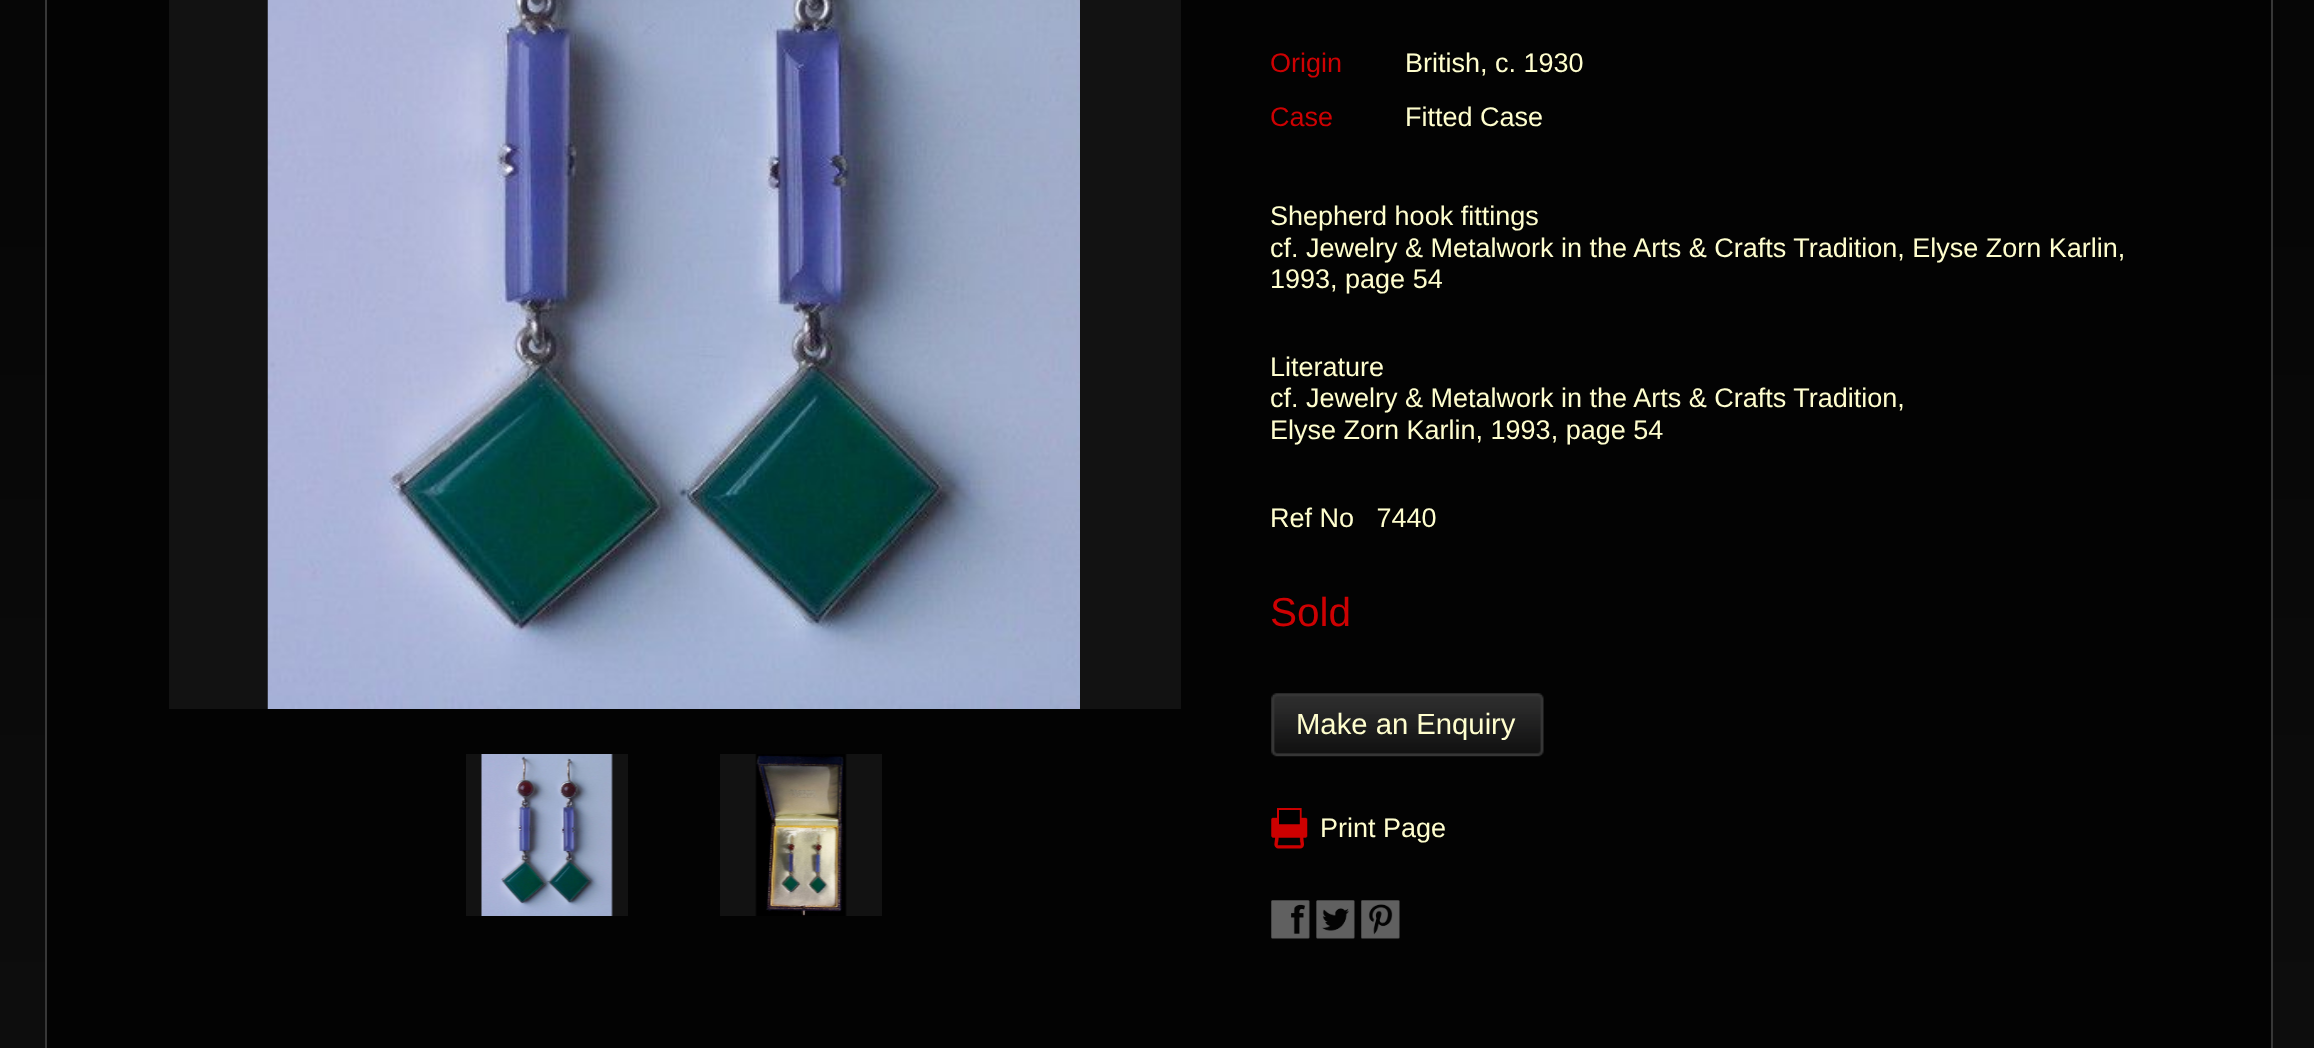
<svg xmlns="http://www.w3.org/2000/svg" width="2314" height="1048" viewBox="0 0 2314 1048">
  <rect width="100%" height="100%" fill="#fff"/>
  <image x="0" y="0" width="2314" height="1048" href="img/1.png"/>
  <path d="M46 -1h2226v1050H46z" fill="#030303" stroke="#373737" stroke-width="2"/>
  <path d="M169 0h1012v709H169z" fill="#121212"/>
  <image x="267" y="0" width="813" height="709" href="img/2.png"/>
  <path d="M466 754h162v162H466z" fill="#121212"/>
  <image x="481" y="754" width="132" height="162" href="img/3.png"/>
  <path d="M720 754h162v162H720z" fill="#121212"/>
  <image x="755" y="754" width="92" height="162" href="img/4.png"/>
  <image x="1271" y="693" width="273" height="64" href="img/5.png"/>
  <image x="1271" y="808" width="37" height="41" href="img/6.png"/>
  <image x="1271" y="900" width="39" height="39" href="img/7.png"/>
  <image x="1316" y="900" width="39" height="39" href="img/8.png"/>
  <image x="1361" y="900" width="39" height="39" href="img/9.png"/>
  <text x="1270" y="72" font-family="Liberation Sans" font-size="27" fill="#cd0102">Origin</text>
  <text x="1405" y="72" font-family="Liberation Sans" font-size="27" fill="#fffece">British, c. 1930</text>
  <text x="1270" y="126" font-family="Liberation Sans" font-size="27" fill="#cd0102">Case</text>
  <g font-family="Liberation Sans" font-size="27" fill="#fffece">
    <text x="1405" y="126">Fitted Case</text>
    <text x="1270" y="225">Shepherd hook fittings</text>
    <text x="1270" y="257">cf. Jewelry &amp; Metalwork in the Arts &amp; Crafts Tradition, Elyse Zorn Karlin,</text>
    <text x="1270" y="288">1993, page 54</text>
    <text x="1270" y="376">Literature</text>
    <text x="1270" y="407">cf. Jewelry &amp; Metalwork in the Arts &amp; Crafts Tradition,</text>
    <text x="1270" y="439">Elyse Zorn Karlin, 1993, page 54</text>
    <text x="1270" y="527" xml:space="preserve">Ref No   7440</text>
  </g>
  <text x="1270" y="626" font-family="Liberation Sans" font-size="40.5" fill="#cd0102">Sold</text>
  <text x="1296" y="734" font-family="Liberation Sans" font-size="29.25" fill="#fffece">Make an Enquiry</text>
  <text x="1320" y="837" font-family="Liberation Sans" font-size="27" fill="#fffece">Print Page</text>
</svg>
